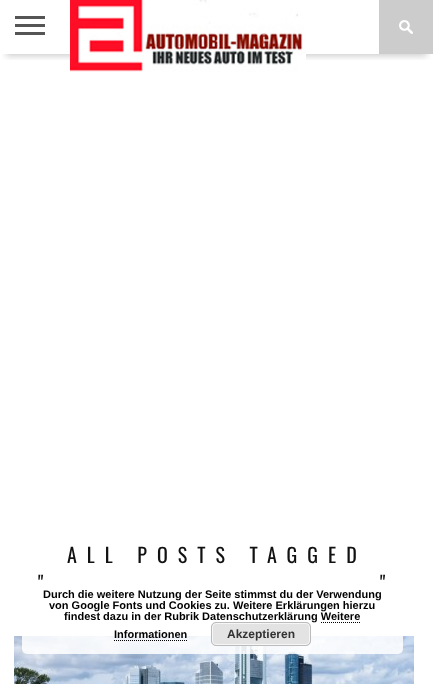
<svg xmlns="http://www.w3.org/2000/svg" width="433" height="684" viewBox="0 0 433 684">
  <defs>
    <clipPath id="clip1"><path d="M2 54h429v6H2z"/></clipPath>
  </defs>
  <rect width="100%" height="100%" fill="#fff"/>
  <g clip-path="url(#clip1)">
    <path d="M6 14h421v42H6z" fill="#00000033" filter="blur(3.5px)"/>
  </g>
  <path d="M15 16h30v3H15z" fill="#555"/>
  <path d="M15 24h30v3H15z" fill="#555"/>
  <path d="M15 32h30v3H15z" fill="#555"/>
  <image x="70" y="0" width="236" height="72" href="img/1.png"/>
  <path d="M379 0h54v54H379z" fill="#ccc"/>
  <image x="399" y="20" width="14" height="14" href="img/2.png"/>
  <image x="14" y="636" width="400" height="48" href="img/3.png"/>
  <rect x="22" y="581" width="381" height="73" rx="5" fill="#ffffffd9"/>
  <path d="M321 622.5H360" fill="none" stroke="#000" stroke-dasharray="1 1"/>
  <path d="M114 640.5H187" fill="none" stroke="#000" stroke-dasharray="1 1"/>
  <g font-family="Oswald" font-size="20" letter-spacing="10" fill="#111">
    <text x="67" y="563">ALL POSTS TAGGED</text>
    <text x="38" y="591">"</text>
    <text x="380" y="591">"</text>
  </g>
  <g font-family="Liberation Sans" font-size="11" font-weight="bold" fill="#000">
    <text x="43" y="598">Durch die weitere Nutzung der Seite stimmst du der Verwendung</text>
    <text x="49" y="609">von Google Fonts und Cookies zu. Weitere Erklärungen hierzu</text>
    <text x="64" y="620">findest dazu in der Rubrik Datenschutzerklärung Weitere</text>
    <text x="114" y="638">Informationen</text>
  </g>
  <rect x="211" y="622" width="100" height="24" rx="5" fill="#e3e3e3"/>
  <rect x="212.5" y="623.5" width="97" height="21" rx="3.5" fill="none" stroke="#f6f6f6"/>
  <rect x="211.5" y="622.5" width="99" height="23" rx="4.5" fill="none" stroke="#bbb"/>
  <text x="227" y="638" font-family="Liberation Sans" font-size="12" font-weight="bold" fill="#333">Akzeptieren</text>
</svg>
